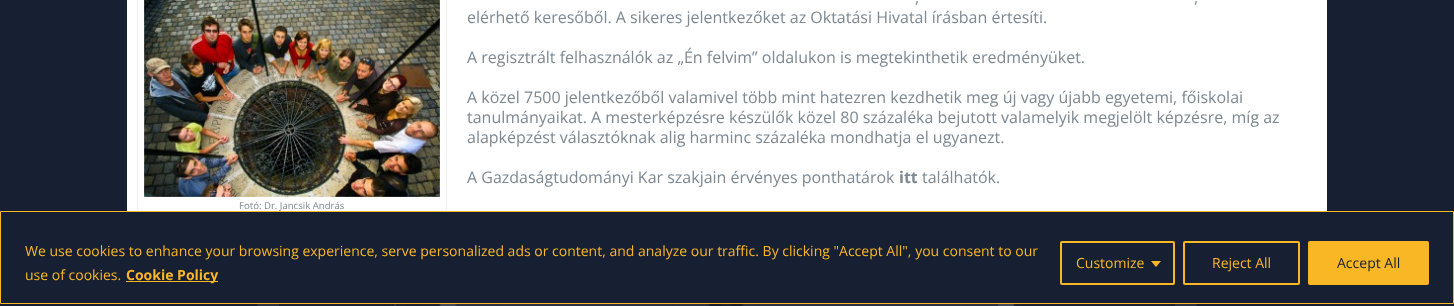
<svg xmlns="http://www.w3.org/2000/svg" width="1454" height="306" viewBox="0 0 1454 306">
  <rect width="100%" height="100%" fill="#171f32"/>
  <image x="257" y="304" width="940" height="2" href="img/1.png"/>
  <path d="M127 0h1200v211H127z" fill="#fff"/>
  <path d="M137.5 -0.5h309v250H137.5z" fill="none" stroke="#f0f0f0"/>
  <image x="144" y="0" width="296" height="197" href="img/2.png"/>
  <path d="M137 212h310v38H137z" fill="#171f32"/>
  <path d="M0.5 211.5h1453v92H0.5z" fill="none" stroke="#f9b726"/>
  <path d="M126 281h92v1H126z" fill="#f9b726"/>
  <rect x="1061" y="242" width="113" height="42" rx="1" fill="none" stroke="#f9b726" stroke-width="2"/>
  <path d="M1151 261H1161L1156 267Z" fill="#f9b726"/>
  <rect x="1184" y="242" width="115" height="42" rx="1" fill="none" stroke="#f9b726" stroke-width="2"/>
  <rect x="1309" y="242" width="119" height="42" rx="1" fill="#f9b726" stroke="#f9b726" stroke-width="2"/>
  <g font-family="Open Sans" font-size="16" fill="#7e8890">
    <text x="915" y="3">,</text>
    <text x="1194" y="3">,</text>
    <text x="467" y="23">elérhető keresőből. A sikeres jelentkezőket az Oktatási Hivatal írásban értesíti.</text>
    <text x="467" y="63">A regisztrált felhasználók az „Én felvim” oldalukon is megtekinthetik eredményüket.</text>
    <text x="467" y="103">A közel 7500 jelentkezőből valamivel több mint hatezren kezdhetik meg új vagy újabb egyetemi, főiskolai</text>
    <text x="467" y="123">tanulmányaikat. A mesterképzésre készülők közel 80 százaléka bejutott valamelyik megjelölt képzésre, míg az</text>
    <text x="467" y="143">alapképzést választóknak alig harminc százaléka mondhatja el ugyanezt.</text>
    <text x="467" y="183">A Gazdaságtudományi Kar szakjain érvényes ponthatárok</text>
  </g>
  <text x="899" y="183" font-family="Open Sans" font-size="16" font-weight="bold" fill="#7e8890">itt</text>
  <text x="922" y="183" font-family="Open Sans" font-size="16" fill="#7e8890">találhatók.</text>
  <text x="239" y="209" font-family="Open Sans" font-size="9.6" fill="#7e8890">Fotó: Dr. Jancsik András</text>
  <g font-family="Open Sans" font-size="14" fill="#f9b726">
    <text x="25" y="256">We use cookies to enhance your browsing experience, serve personalized ads or content, and analyze our traffic. By clicking "Accept All", you consent to our</text>
    <text x="25" y="280">use of cookies.</text>
  </g>
  <text x="126" y="280" font-family="Open Sans" font-size="14" font-weight="bold" fill="#f9b726">Cookie Policy</text>
  <g font-family="Open Sans" font-size="14" fill="#f9b726">
    <text x="1076" y="268">Customize</text>
    <text x="1212" y="268">Reject All</text>
  </g>
  <text x="1337" y="268" font-family="Open Sans" font-size="14" fill="#171f32">Accept All</text>
</svg>
